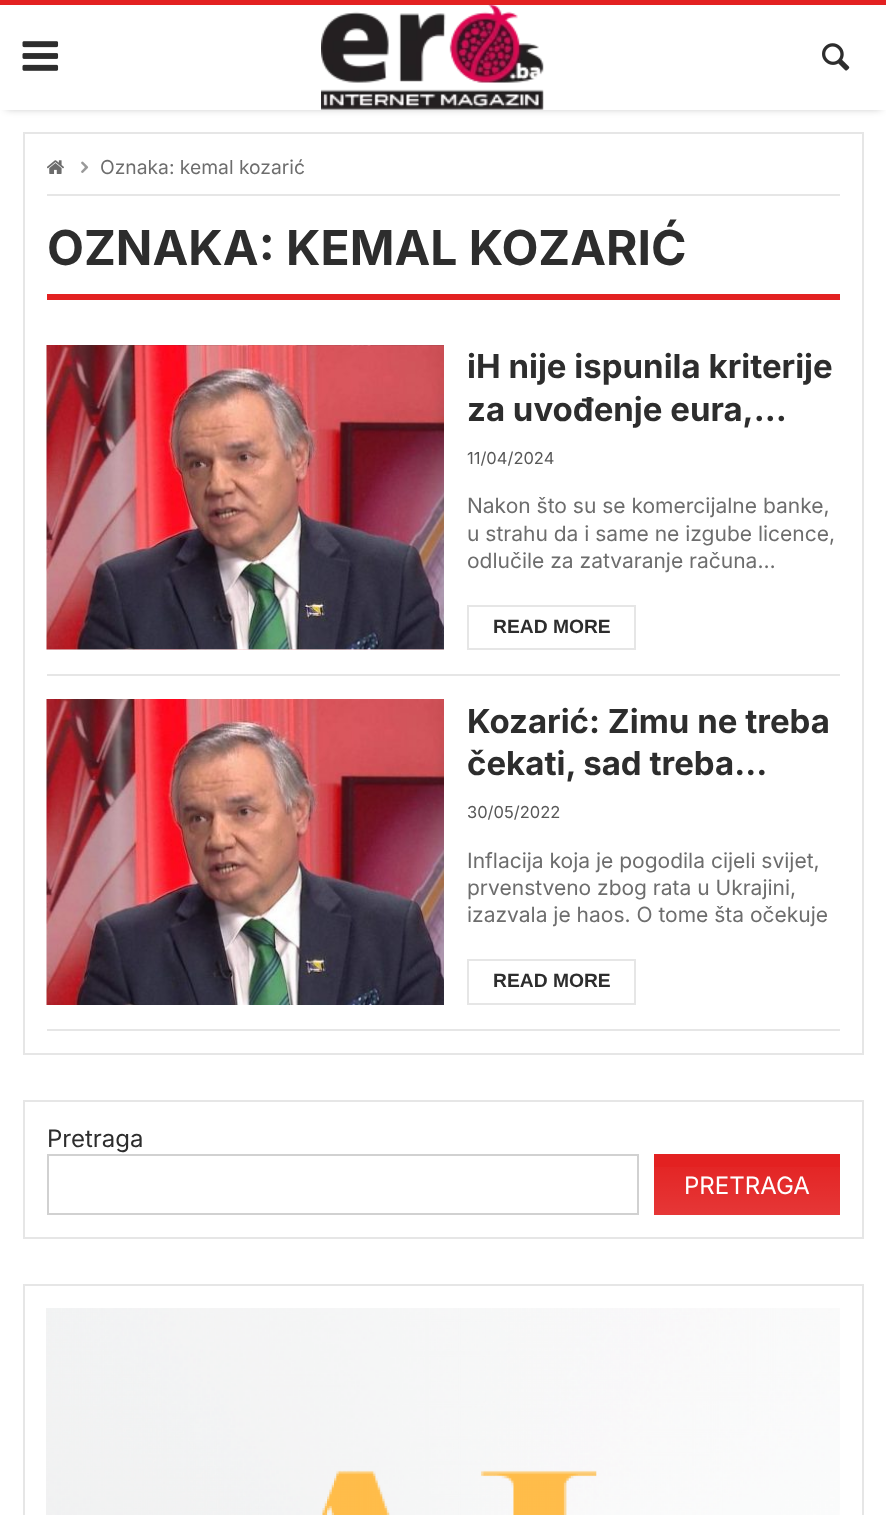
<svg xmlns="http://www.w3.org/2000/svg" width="886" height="1515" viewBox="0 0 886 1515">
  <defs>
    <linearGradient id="g1" gradientUnits="userSpaceOnUse" x1="747" y1="1154" x2="747" y2="1215"><stop offset="0" stop-color="#fff" stop-opacity="0"/><stop offset="1" stop-color="#fff" stop-opacity="0.1"/></linearGradient>
  </defs>
  <rect width="100%" height="100%" fill="#fff"/>
  <path d="M0 0h886v5H0z" fill="#e32121"/>
  <path d="M6 15h875v93H6z" fill="#0000004d" filter="blur(4.5px)"/>
  <path d="M0 7h886v103H0z" fill="#fff"/>
  <image x="22" y="41" width="37" height="30" href="img/1.png"/>
  <image x="321" y="4" width="223" height="106" href="img/2.png"/>
  <image x="822" y="43" width="28" height="28" href="img/3.png"/>
  <path d="M24 133h839v921H24z" fill="none" stroke="#e6e6e6" stroke-width="2"/>
  <path d="M47 194h793v2H47z" fill="#e6e6e6"/>
  <image x="47" y="160" width="17" height="14" href="img/4.png"/>
  <image x="81" y="161" width="8" height="12" href="img/5.png"/>
  <path d="M47 294h793v6H47z" fill="#e32121"/>
  <image x="46" y="345" width="398" height="305" href="img/6.png"/>
  <path d="M468 606h167v43H468z" fill="none" stroke="#e6e6e6" stroke-width="2"/>
  <path d="M47 674h793v2H47z" fill="#e6e6e6"/>
  <image x="46" y="699" width="398" height="306" href="img/7.png"/>
  <path d="M468 960h167v44H468z" fill="none" stroke="#e6e6e6" stroke-width="2"/>
  <path d="M47 1029h793v2H47z" fill="#e6e6e6"/>
  <path d="M24 1101h839v137H24z" fill="none" stroke="#e6e6e6" stroke-width="2"/>
  <path d="M48 1155h590v59H48z" fill="none" stroke="#d1d1d1" stroke-width="2"/>
  <path d="M654 1154h186v61H654z" fill="#e32121"/>
  <path d="M654 1167h186v48H654z" fill="url(#g1)"/>
  <path d="M24 1285h839v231H24z" fill="none" stroke="#e6e6e6" stroke-width="2"/>
  <image x="46" y="1308" width="794" height="207" href="img/8.png"/>
  <text x="100" y="174" font-family="Inter" font-size="19.25" fill="#6d6d6d">Oznaka: kemal kozarić</text>
  <text x="47" y="265" font-family="Inter" font-size="48" font-weight="bold" fill="#2d2d2d">OZNAKA: KEMAL KOZARIĆ</text>
  <g font-family="Inter" font-size="33" font-weight="bold" fill="#2d2d2d">
    <text x="467" y="378">iH nije ispunila kriterije</text>
    <text x="467" y="421">za uvođenje eura,…</text>
  </g>
  <text x="467" y="464" font-family="Inter" font-size="16.5" fill="#575757">11/04/2024</text>
  <g font-family="Inter" font-size="21" fill="#6d6d6d">
    <text x="467" y="513">Nakon što su se komercijalne banke,</text>
    <text x="467" y="541">u strahu da i same ne izgube licence,</text>
    <text x="467" y="568">odlučile za zatvaranje računa…</text>
  </g>
  <text x="493" y="633" font-family="Liberation Sans" font-size="19.25" font-weight="bold" fill="#2d2d2d">READ MORE</text>
  <g font-family="Inter" font-size="33" font-weight="bold" fill="#2d2d2d">
    <text x="467" y="733">Kozarić: Zimu ne treba</text>
    <text x="467" y="775">čekati, sad treba…</text>
  </g>
  <text x="467" y="818" font-family="Inter" font-size="16.5" fill="#575757">30/05/2022</text>
  <g font-family="Inter" font-size="21" fill="#6d6d6d">
    <text x="467" y="868">Inflacija koja je pogodila cijeli svijet,</text>
    <text x="467" y="895">prvenstveno zbog rata u Ukrajini,</text>
    <text x="467" y="922">izazvala je haos. O tome šta očekuje</text>
  </g>
  <text x="493" y="987" font-family="Liberation Sans" font-size="19.25" font-weight="bold" fill="#2d2d2d">READ MORE</text>
  <text x="47" y="1147" font-family="Inter" font-size="24" fill="#2d2d2d">Pretraga</text>
  <text x="684" y="1194" font-family="Inter" font-size="24" fill="#fff">PRETRAGA</text>
</svg>
